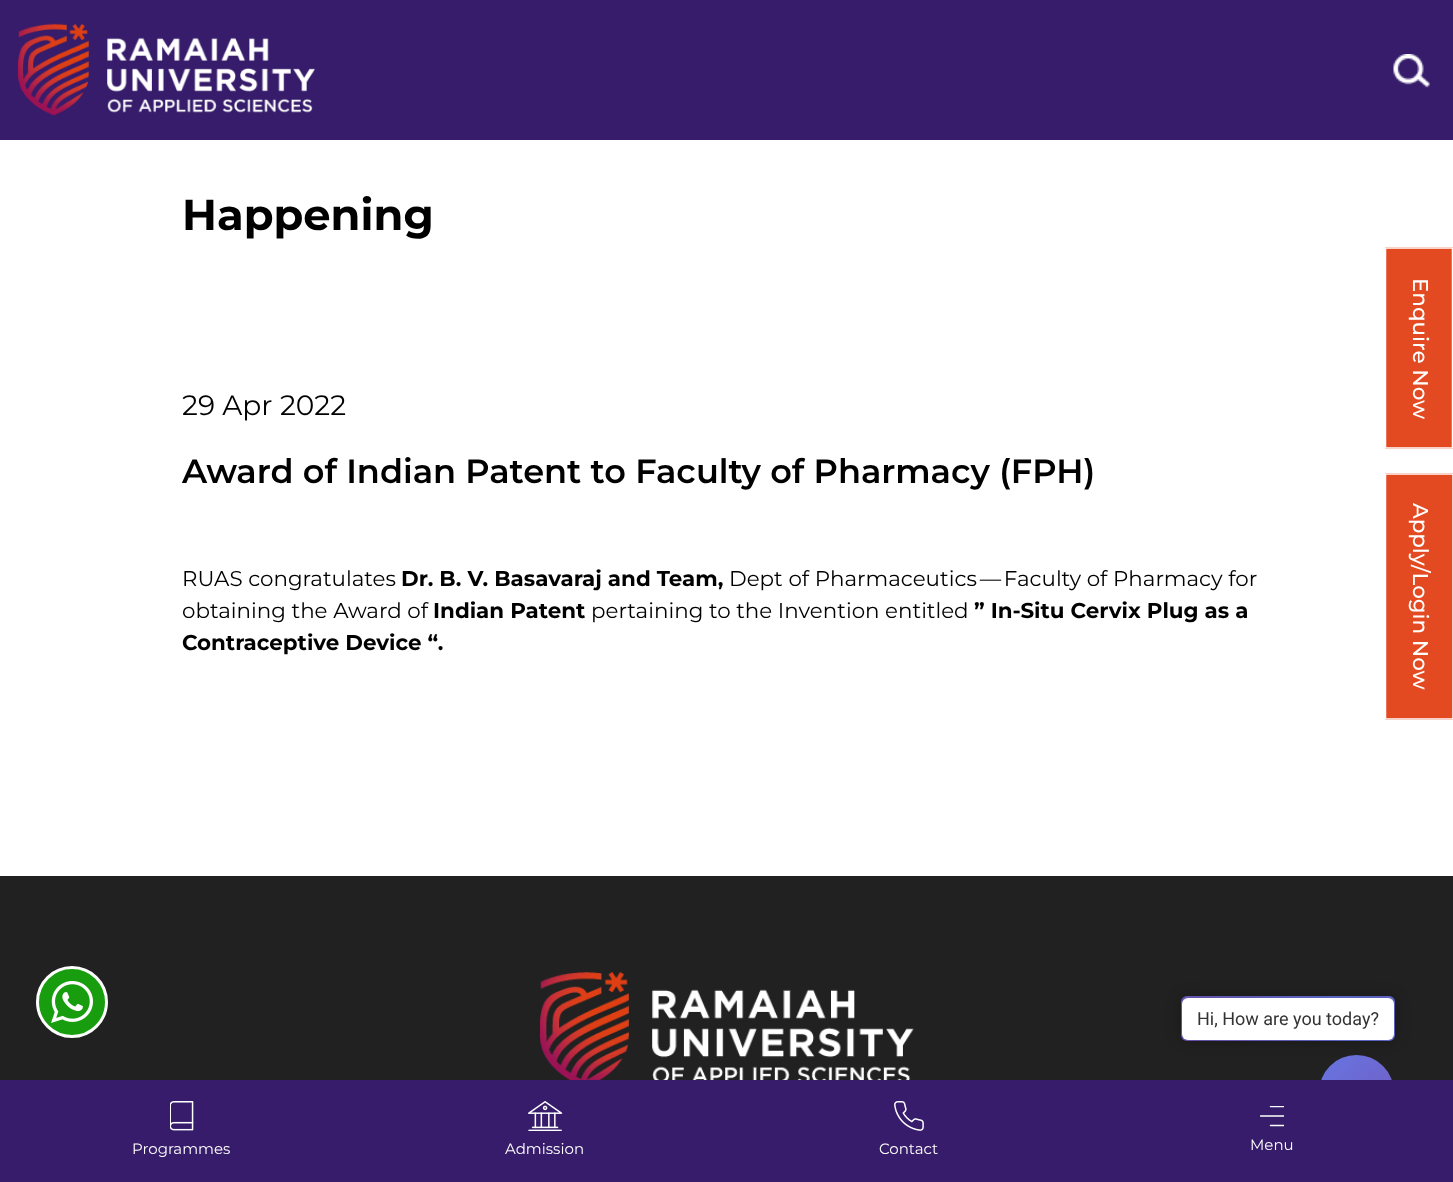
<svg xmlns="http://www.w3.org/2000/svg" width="1453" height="1182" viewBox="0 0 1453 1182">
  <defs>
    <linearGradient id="g1" gradientUnits="userSpaceOnUse" x1="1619" y1="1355" x2="1319" y2="1055"><stop offset="0" stop-color="#7953b5"/><stop offset="0.33" stop-color="#6675e2"/><stop offset="0.67" stop-color="#7953b5"/><stop offset="1" stop-color="#6675e2"/></linearGradient>
    <linearGradient id="g2" gradientUnits="userSpaceOnUse" x1="1232" y1="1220" x2="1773" y2="907"><stop offset="0" stop-color="#7953b5"/><stop offset="0.33" stop-color="#6675e2"/><stop offset="0.67" stop-color="#7953b5"/><stop offset="1" stop-color="#6675e2"/></linearGradient>
    <clipPath id="clip1"><path d="M1260 1106h24v21H1260z"/></clipPath>
  </defs>
  <rect width="100%" height="100%" fill="#fff"/>
  <path d="M0 0h1453v140H0z" fill="#361c6a"/>
  <image x="18" y="23" width="297" height="93" href="img/1.png"/>
  <image x="1393" y="54" width="37" height="34" href="img/2.png"/>
  <path d="M1385 247h68v202H1385z" fill="#e34a21"/>
  <path d="M1452.5 248V448H1385.5V248Z" fill="none" stroke="#fff" stroke-width="1.5"/>
  <path d="M1385 473h68v247H1385z" fill="#e34a21"/>
  <path d="M1453 474V719H1385.5V474Z" fill="none" stroke="#fff" stroke-width="1.5"/>
  <path d="M0 876h1453v204H0z" fill="#212121"/>
  <image x="540" y="972" width="374" height="108" href="img/3.png"/>
  <circle cx="72" cy="1002" r="34.5" fill="#179d0d" stroke="#fff" stroke-width="3"/>
  <image x="51" y="981" width="42" height="42" href="img/4.png"/>
  <circle cx="1356.5" cy="1092.5" r="37.5" fill="url(#g1)"/>
  <rect x="1181" y="996" width="214" height="45" rx="6" fill="url(#g2)"/>
  <rect x="1182" y="998" width="212" height="42" rx="6" fill="#0000004d" filter="blur(7.5px)"/>
  <rect x="1182" y="998" width="212" height="42" rx="6" fill="#fff"/>
  <path d="M0 1080h1453v102H0z" fill="#361c6a"/>
  <image x="170" y="1101" width="24" height="30" href="img/5.png"/>
  <image x="528" y="1101" width="35" height="30" href="img/6.png"/>
  <image x="894" y="1101" width="30" height="30" href="img/7.png"/>
  <g clip-path="url(#clip1)">
    <path d="M1270.5 1106.5H1284M1260.5 1116H1284M1270.5 1125.5H1284" fill="none" stroke="#fff" stroke-width="1.5" stroke-linecap="round" stroke-linejoin="round"/>
  </g>
  <text x="182" y="230" font-family="Montserrat" font-size="43.25" font-weight="bold" fill="#000">Happening</text>
  <text x="182" y="415" font-family="Montserrat" font-size="28" fill="#000">29 Apr 2022</text>
  <text x="182" y="483" font-family="Montserrat" font-size="33.6" font-weight="600" fill="#000">Award of Indian Patent to Faculty of Pharmacy (FPH)</text>
  <text x="182" y="586" font-family="Montserrat" font-size="21.4" fill="#000">RUAS congratulates</text>
  <text x="401" y="586" font-family="Montserrat" font-size="21.4" font-weight="bold" fill="#000">Dr. B. V. Basavaraj and Team,</text>
  <g font-family="Montserrat" font-size="21.4" fill="#000">
    <text x="729" y="586">Dept of Pharmaceutics — Faculty of Pharmacy for</text>
    <text x="182" y="618">obtaining the Award of</text>
  </g>
  <text x="433" y="618" font-family="Montserrat" font-size="21.4" font-weight="bold" fill="#000">Indian Patent</text>
  <text x="591" y="618" font-family="Montserrat" font-size="21.4" fill="#000">pertaining to the Invention entitled</text>
  <g font-family="Montserrat" font-size="21.4" font-weight="bold" fill="#000">
    <text x="974" y="618">” In-Situ Cervix Plug as a</text>
    <text x="182" y="650">Contraceptive Device “.</text>
  </g>
  <g font-family="Montserrat" font-size="21.4" font-weight="500" fill="#fff">
    <text x="1413" y="278" transform="rotate(90 1413 278)">Enquire Now</text>
    <text x="1413" y="503" transform="rotate(90 1413 503)">Apply/Login Now</text>
  </g>
  <text x="1197" y="1025" font-family="Roboto" font-size="18" fill="#333">Hi, How are you today?</text>
  <g font-family="Montserrat" font-size="15" fill="#fff">
    <text x="132" y="1154">Programmes</text>
    <text x="505" y="1154">Admission</text>
    <text x="879" y="1154">Contact</text>
    <text x="1250" y="1150">Menu</text>
  </g>
</svg>
